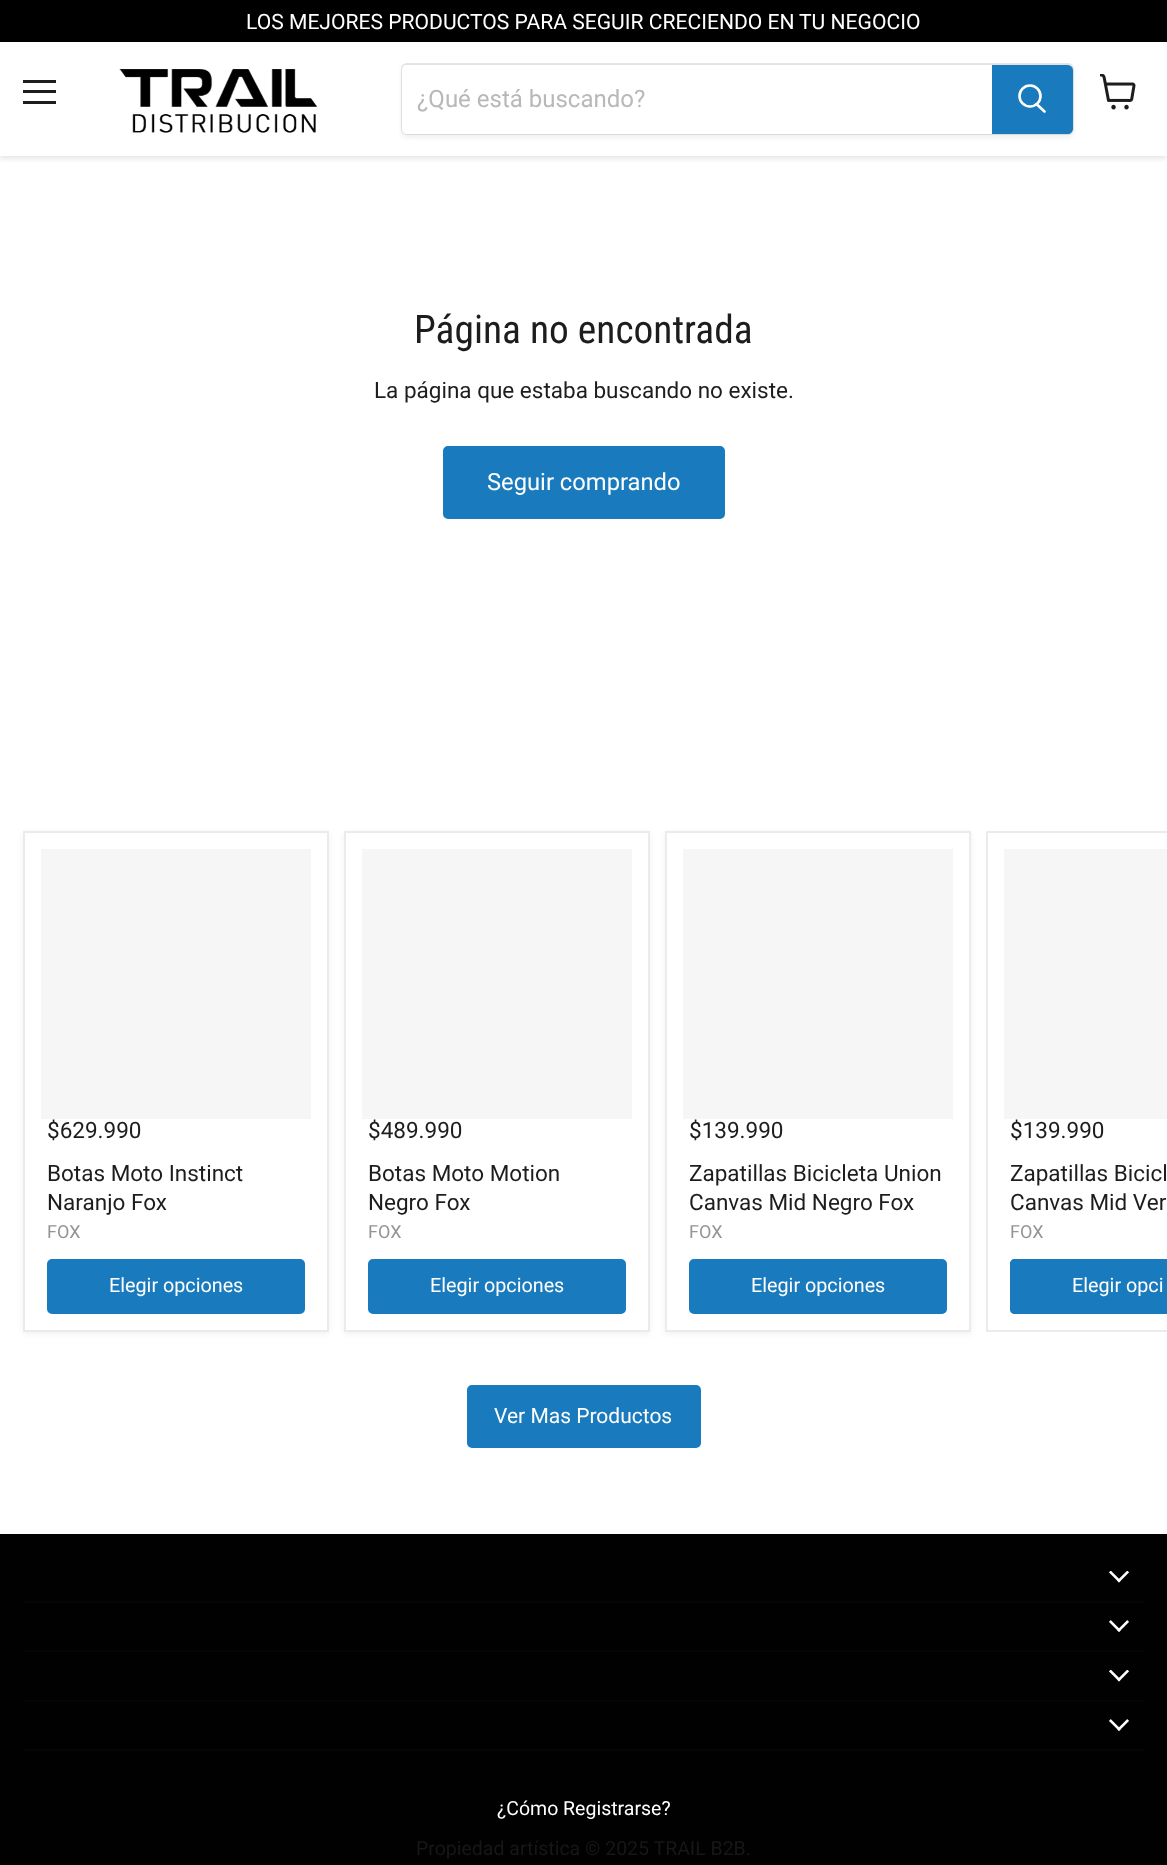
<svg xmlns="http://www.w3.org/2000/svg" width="1167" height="1865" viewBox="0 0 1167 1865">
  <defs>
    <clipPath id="clip1"><path d="M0 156h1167v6H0z"/></clipPath>
  </defs>
  <rect width="100%" height="100%" fill="#fff"/>
  <g clip-path="url(#clip1)">
    <path d="M0 44h1167v114H0z" fill="#80808040" filter="blur(3px)"/>
  </g>
  <path d="M0 0h1167v42H0z" fill="#000"/>
  <path d="M23 80h33v3H23z" fill="#1d1d1d"/>
  <path d="M23 90h33v3H23z" fill="#1d1d1d"/>
  <path d="M23 101h33v3H23z" fill="#1d1d1d"/>
  <image x="119" y="69" width="199" height="64" href="img/1.png"/>
  <rect x="401" y="66" width="673" height="72" rx="6" fill="#8080801c" filter="blur(2px)"/>
  <rect x="402" y="64" width="671" height="70" rx="5" fill="none" stroke="#80808033" stroke-width="2"/>
  <path d="M407 65H992V134H407C404 134 402 132 402 129V70C402 67 404 65 407 65Z" fill="#fff"/>
  <path d="M993 66H1068C1070 66 1072 68 1072 70V129C1072 131 1070 133 1068 133H993Z" fill="#197bbd" stroke="#197bbd" stroke-width="2"/>
  <path d="M1044.5 111.5L1037 104.5" fill="none" stroke="#fff" stroke-width="2.6" stroke-linecap="round"/>
  <circle cx="1030" cy="96" r="10.5" fill="none" stroke="#fff" stroke-width="2.6"/>
  <image x="1100" y="74" width="36" height="36" href="img/2.png"/>
  <rect x="444" y="447" width="280" height="71" rx="4" fill="#197bbd" stroke="#197bbd" stroke-width="2"/>
  <path d="M23 833h306v501H23z" fill="#8080801c" filter="blur(3px)"/>
  <path d="M24 832h304v499H24z" fill="#fff" stroke="#ebebeb" stroke-width="2"/>
  <path d="M41 849h270v270H41z" fill="#f6f6f6"/>
  <rect x="48" y="1260" width="256" height="53" rx="4" fill="#197bbd" stroke="#197bbd" stroke-width="2"/>
  <path d="M344 833h306v501H344z" fill="#8080801c" filter="blur(3px)"/>
  <path d="M345 832h304v499H345z" fill="#fff" stroke="#ebebeb" stroke-width="2"/>
  <path d="M362 849h270v270H362z" fill="#f6f6f6"/>
  <rect x="369" y="1260" width="256" height="53" rx="4" fill="#197bbd" stroke="#197bbd" stroke-width="2"/>
  <path d="M665 833h306v501H665z" fill="#8080801c" filter="blur(3px)"/>
  <path d="M666 832h304v499H666z" fill="#fff" stroke="#ebebeb" stroke-width="2"/>
  <path d="M683 849h270v270H683z" fill="#f6f6f6"/>
  <rect x="690" y="1260" width="256" height="53" rx="4" fill="#197bbd" stroke="#197bbd" stroke-width="2"/>
  <path d="M987 832h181v499H987z" fill="none" stroke="#ebebeb" stroke-width="2"/>
  <path d="M1004 849h163v270H1004z" fill="#f6f6f6"/>
  <path d="M1015 1259H1167V1314H1015C1012 1314 1010 1312 1010 1309V1264C1010 1261 1012 1259 1015 1259Z" fill="#197bbd"/>
  <rect x="1011" y="1260" width="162" height="53" rx="4" fill="none" stroke="#197bbd" stroke-width="2"/>
  <rect x="468" y="1386" width="232" height="61" rx="4" fill="#197bbd" stroke="#197bbd" stroke-width="2"/>
  <path d="M0 1534h1167v331H0z" fill="#010101"/>
  <path d="M23 1601h1122v2H23z" fill="#050505"/>
  <image x="1109" y="1571" width="20" height="12" href="img/3.png"/>
  <path d="M23 1650h1122v2H23z" fill="#050505"/>
  <image x="1109" y="1620" width="20" height="12" href="img/4.png"/>
  <path d="M23 1700h1122v2H23z" fill="#050505"/>
  <image x="1109" y="1670" width="20" height="12" href="img/3.png"/>
  <path d="M23 1749h1122v2H23z" fill="#050505"/>
  <image x="1109" y="1719" width="20" height="12" href="img/4.png"/>
  <g font-family="Roboto" font-size="21.1" fill="#fff">
    <text x="246" y="29">LOS MEJORES PRODUCTOS PARA SEGUIR CRECIENDO EN</text>
    <text x="799" y="29">TU NEGOCIO</text>
  </g>
  <text x="417" y="107" font-family="Roboto" font-size="24" fill="#b8b8b8">¿Qué está buscando?</text>
  <text x="414" y="343" font-family="Roboto Condensed" font-size="39.4" fill="#1d1d1d">Página no encontrada</text>
  <text x="374" y="398" font-family="Roboto" font-size="22.5" fill="#1d1d1d">La página que estaba buscando no existe.</text>
  <text x="487" y="490" font-family="Roboto" font-size="23.75" fill="#fff">Seguir comprando</text>
  <g font-family="Roboto" font-size="22.5" fill="#1d1d1d">
    <text x="47" y="1138">$629.990</text>
    <text x="47" y="1181">Botas Moto Instinct</text>
    <text x="47" y="1210">Naranjo Fox</text>
  </g>
  <text x="47" y="1238" font-family="Roboto" font-size="18" fill="#949494">FOX</text>
  <text x="109" y="1292" font-family="Roboto" font-size="19.75" fill="#fff">Elegir opciones</text>
  <g font-family="Roboto" font-size="22.5" fill="#1d1d1d">
    <text x="368" y="1138">$489.990</text>
    <text x="368" y="1181">Botas Moto Motion</text>
    <text x="368" y="1210">Negro Fox</text>
  </g>
  <text x="368" y="1238" font-family="Roboto" font-size="18" fill="#949494">FOX</text>
  <text x="430" y="1292" font-family="Roboto" font-size="19.75" fill="#fff">Elegir opciones</text>
  <g font-family="Roboto" font-size="22.5" fill="#1d1d1d">
    <text x="689" y="1138">$139.990</text>
    <text x="689" y="1181">Zapatillas Bicicleta Union</text>
    <text x="689" y="1210">Canvas Mid Negro Fox</text>
  </g>
  <text x="689" y="1238" font-family="Roboto" font-size="18" fill="#949494">FOX</text>
  <text x="751" y="1292" font-family="Roboto" font-size="19.75" fill="#fff">Elegir opciones</text>
  <g font-family="Roboto" font-size="22.5" fill="#1d1d1d">
    <text x="1010" y="1138">$139.990</text>
    <text x="1010" y="1181">Zapatillas Bicicl</text>
    <text x="1010" y="1210">Canvas Mid Ver</text>
  </g>
  <text x="1010" y="1238" font-family="Roboto" font-size="18" fill="#949494">FOX</text>
  <text x="1072" y="1292" font-family="Roboto" font-size="19.75" fill="#fff">Elegir opci</text>
  <text x="494" y="1423" font-family="Roboto" font-size="21" fill="#fff">Ver Mas Productos</text>
  <text x="497" y="1815" font-family="Roboto" font-size="19.5" fill="#fff">¿Cómo Registrarse?</text>
  <text x="416" y="1855" font-family="Roboto" font-size="19.5" fill="#171717">Propiedad artística © 2025 TRAIL B2B.</text>
</svg>
